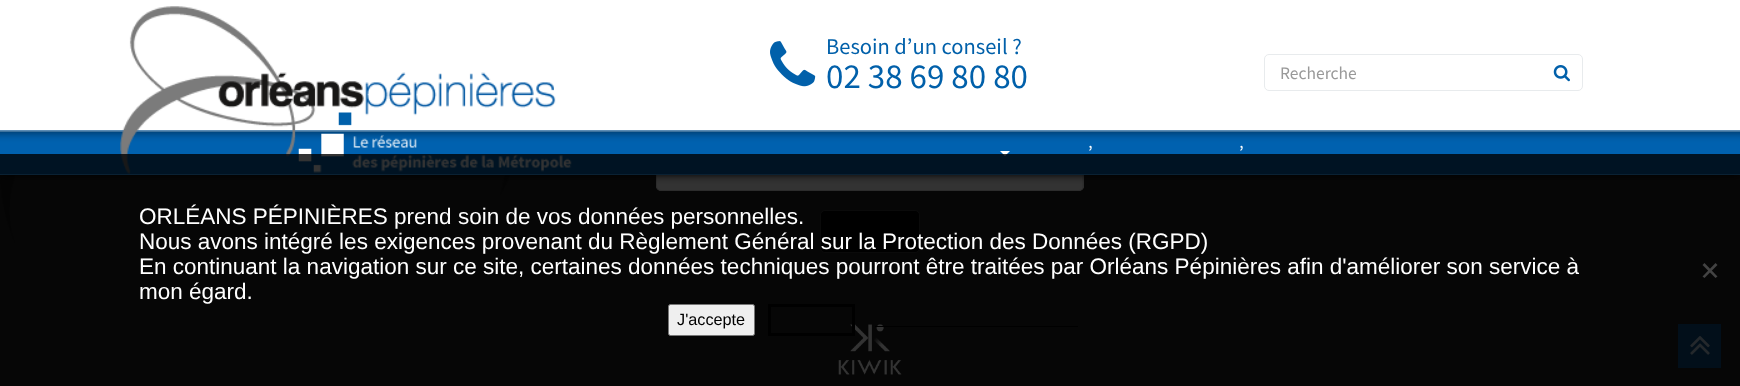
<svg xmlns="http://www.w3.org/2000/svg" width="1740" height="386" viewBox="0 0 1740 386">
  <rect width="100%" height="100%" fill="#222"/>
  <image x="0" y="175" width="511" height="68" href="img/5.png"/>
  <rect x="656" y="149" width="428" height="42" rx="5" fill="#fff"/>
  <path d="M661 151H1079C1081 151 1082 153 1082 155V189C1083 188 1083 187 1083 186V154C1083 152 1081 150 1079 150H662C660 150 658 152 658 154V155C658 153 659 151 661 151Z" fill="#ececec"/>
  <rect x="656.5" y="149.5" width="427" height="41" rx="4.5" fill="none" stroke="#ddd"/>
  <path d="M0 0h1740v175H0z" fill="#000" filter="blur(4px)"/>
  <path d="M0 0h1740v132H0z" fill="#fff"/>
  <image x="0" y="131" width="1740" height="43" href="img/4.png"/>
  <path d="M0 130h1740v1H0z" fill="#5d8db5"/>
  <image x="120" y="6" width="452" height="168" href="img/1.png"/>
  <image x="770" y="41" width="46" height="46" href="img/2.png"/>
  <rect x="1264.5" y="54.5" width="318" height="36" rx="4.5" fill="none" stroke="#e8ebed"/>
  <image x="1553" y="65" width="17" height="17" href="img/3.png"/>
  <path d="M0 174h1740v1H0z" fill="#32a5fe"/>
  <path d="M1000 151H1010L1005 156Z" fill="#fff"/>
  <rect x="820.5" y="210.5" width="99" height="42" rx="4.5" fill="#000" stroke="#333"/>
  <image x="838" y="324" width="64" height="51" href="img/6.png"/>
  <path d="M1678 324h43v44H1678z" fill="#0b4d81"/>
  <image x="1690" y="336" width="20" height="19" href="img/7.png"/>
  <path d="M0 154h1740v232H0z" fill="#000000cc"/>
  <path d="M1715.5 263L1717.5 265L1704.5 278L1702.5 276.5Z" fill="#434343"/>
  <path d="M1702.5 265L1704.5 263L1717.5 276.5L1715.5 278Z" fill="#434343"/>
  <rect x="668.5" y="304.5" width="86" height="31" rx="2" fill="#efefef" stroke="#767676"/>
  <path d="M769.5 305.5h84v29H769.5z" fill="none" stroke="#000" stroke-width="3"/>
  <path d="M875 326h203v1H875z" fill="#000"/>
  <text x="826" y="54" font-family="Source Sans Pro" font-size="22.5" fill="#0160aa">Besoin d’un conseil ?</text>
  <text x="826" y="88" font-family="Source Sans Pro" font-size="35" fill="#0160aa">02 38 69 80 80</text>
  <text x="1280" y="79" font-family="Source Sans Pro" font-size="17.5" fill="#999">Recherche</text>
  <g font-family="Source Sans Pro" font-size="19" fill="#fff">
    <text x="1088" y="159">’</text>
    <text x="1239" y="159">’</text>
  </g>
  <g font-family="Liberation Sans" font-size="22.5" fill="#fff">
    <text x="139" y="224">ORLÉANS PÉPINIÈRES prend soin de vos données personnelles.</text>
    <text x="139" y="249">Nous avons intégré les exigences provenant du Règlement Général sur la Protection des Données (RGPD)</text>
    <text x="139" y="274">En continuant la navigation sur ce site, certaines données techniques pourront être traitées par Orléans Pépinières afin d'améliorer son service à</text>
    <text x="139" y="299">mon égard.</text>
  </g>
  <text x="677" y="325" font-family="Liberation Sans" font-size="16.25" fill="#000">J'accepte</text>
</svg>
